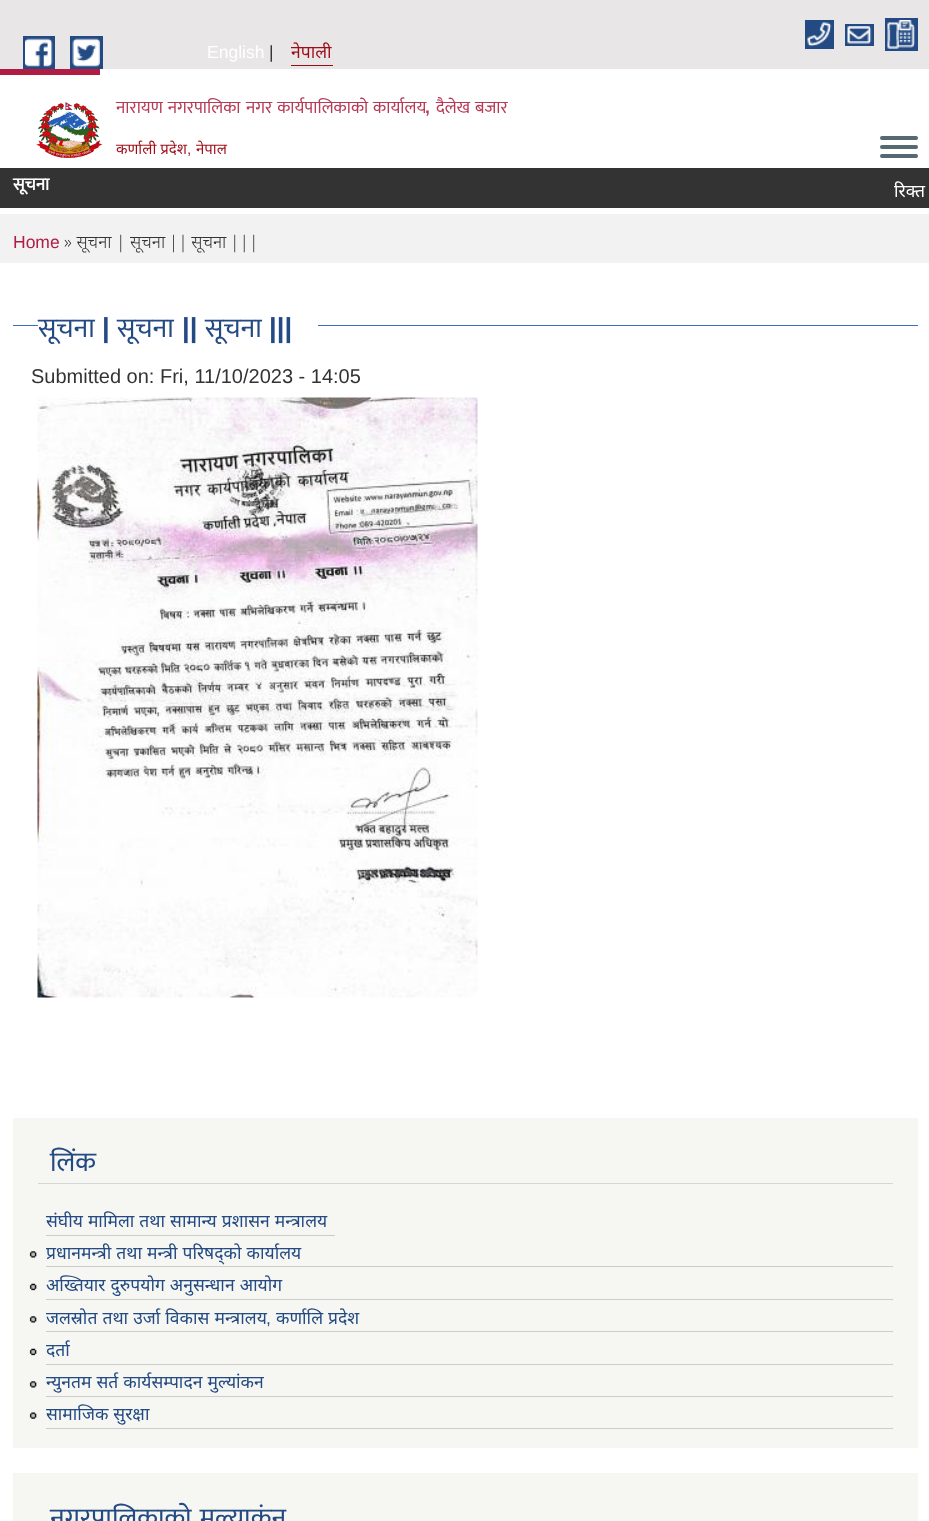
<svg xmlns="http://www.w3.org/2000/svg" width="929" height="1521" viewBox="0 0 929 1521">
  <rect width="100%" height="100%" fill="#fff"/>
  <path d="M0 0h929v69H0z" fill="#e8e6e6"/>
  <path d="M23 36h32v33H23z" fill="#234a83"/>
  <path d="M70 36h33v33H70z" fill="#234a83"/>
  <image x="25" y="38" width="28" height="29" href="img/1.png"/>
  <image x="72" y="38" width="28" height="29" href="img/2.png"/>
  <path d="M291 65h42v1H291z" fill="#9e0c18"/>
  <path d="M805 20h29v29H805z" fill="#234a83"/>
  <path d="M885 18h33v33H885z" fill="#234a83"/>
  <image x="807" y="22" width="25" height="25" href="img/3.png"/>
  <path d="M845 24h29v22H845z" fill="#234a83"/>
  <image x="887" y="20" width="28" height="29" href="img/4.png"/>
  <image x="847" y="26" width="25" height="18" href="img/5.png"/>
  <path d="M0 69h100v6H0z" fill="#b21c42"/>
  <image x="36" y="102" width="67" height="56" href="img/6.png"/>
  <rect x="880" y="136" width="38" height="4" rx="2" fill="#566973"/>
  <rect x="880" y="145" width="38" height="4" rx="2" fill="#566973"/>
  <rect x="880" y="154" width="38" height="4" rx="2" fill="#566973"/>
  <path d="M0 168h929v40H0z" fill="#333"/>
  <path d="M0 214h929v49H0z" fill="#f2f2f2"/>
  <path d="M13 325h905v1H13z" fill="#376fc2"/>
  <path d="M38 325h280v1H38z" fill="#fff"/>
  <image x="37" y="397" width="441" height="601" href="img/7.png"/>
  <path d="M13 1118h905v330H13z" fill="#f6f6f2"/>
  <path d="M38 1183h855v1H38z" fill="#d6d6d6"/>
  <path d="M46 1235h289v1H46z" fill="#ccc"/>
  <path d="M46 1266h847v1H46z" fill="#ccc"/>
  <image x="29" y="1251" width="8" height="7" href="img/8.png"/>
  <path d="M46 1299h847v1H46z" fill="#ccc"/>
  <image x="29" y="1283" width="8" height="8" href="img/9.png"/>
  <path d="M46 1331h847v1H46z" fill="#ccc"/>
  <image x="29" y="1316" width="8" height="7" href="img/8.png"/>
  <path d="M46 1364h847v1H46z" fill="#ccc"/>
  <image x="29" y="1348" width="8" height="8" href="img/9.png"/>
  <path d="M46 1396h847v1H46z" fill="#ccc"/>
  <image x="29" y="1381" width="8" height="7" href="img/8.png"/>
  <path d="M46 1428h847v1H46z" fill="#ccc"/>
  <image x="29" y="1412" width="8" height="7" href="img/10.png"/>
  <path d="M13 1473h905v48H13z" fill="#f6f6f2"/>
  <text x="207" y="58" font-family="Liberation Sans" font-size="17.5" fill="#fff">English</text>
  <text x="269" y="58" font-family="Liberation Sans" font-size="17.5" fill="#333">|</text>
  <text x="291" y="58" font-family="Noto Sans" font-size="17.5" fill="#9e0c18">नेपाली</text>
  <g font-family="Mukta" font-size="17.5" fill="#b83955">
    <text x="116" y="113" word-spacing="1">नारायण नगरपालिका</text>
    <text x="246" y="113" word-spacing="1">नगर कार्यपालिकाको कार्यालय</text>
  </g>
  <text x="425" y="113" font-family="Liberation Sans" font-size="17.5" font-weight="bold" fill="#b83955">,</text>
  <text x="436" y="113" word-spacing="1" font-family="Mukta" font-size="17.5" fill="#b83955">दैलेख बजार</text>
  <text x="116" y="154" font-family="Noto Sans" font-size="15" fill="#9e0c18">कर्णाली प्रदेश</text>
  <text x="187" y="154" font-family="Liberation Sans" font-size="15" fill="#9e0c18">,</text>
  <text x="196" y="154" font-family="Noto Sans" font-size="15" fill="#9e0c18">नेपाल</text>
  <text x="13" y="190" font-family="Mukta" font-size="17.5" font-weight="bold" fill="#fff">सूचना</text>
  <text x="894" y="197" word-spacing="0.5" font-family="Noto Sans" font-size="17.5" fill="#fff">रिक्त</text>
  <text x="13" y="248" font-family="Liberation Sans" font-size="17.5" fill="#b21c42">Home</text>
  <g font-family="Noto Sans" font-size="17.5" font-weight="300" fill="#333">
    <text x="64" y="248">» सूचना |</text>
    <text x="130" y="248" word-spacing="-1">सूचना || सूचना |||</text>
  </g>
  <text x="38" y="337" font-family="Mukta" font-size="27.5" fill="#234a83">सूचना</text>
  <text x="102" y="337" font-family="Liberation Sans" font-size="27.5" font-weight="bold" fill="#234a83">|</text>
  <text x="117" y="337" font-family="Mukta" font-size="27.5" fill="#234a83">सूचना</text>
  <text x="182" y="337" font-family="Liberation Sans" font-size="27.5" font-weight="bold" fill="#234a83">||</text>
  <text x="205" y="337" font-family="Mukta" font-size="27.5" fill="#234a83">सूचना</text>
  <text x="269" y="337" font-family="Liberation Sans" font-size="27.5" font-weight="bold" fill="#234a83">|||</text>
  <text x="31" y="383" font-family="Liberation Sans" font-size="20" fill="#333">Submitted on: Fri, 11/10/2023 - 14:05</text>
  <text x="50" y="1171" font-family="Mukta" font-size="27.5" fill="#234a83">लिंक</text>
  <g font-family="Noto Sans" font-size="17.5" fill="#234a83">
    <text x="46" y="1227" word-spacing="0.5">संघीय मामिला तथा सामान्य प्रशासन मन्त्रालय</text>
    <text x="46" y="1259" word-spacing="0.5">प्रधानमन्त्री तथा मन्त्री परिषद्को कार्यालय</text>
    <text x="46" y="1291" word-spacing="0.5">अख्तियार दुरुपयोग अनुसन्धान आयोग</text>
    <text x="46" y="1324" word-spacing="0.5">जलस्रोत तथा उर्जा विकास मन्त्रालय</text>
  </g>
  <text x="266" y="1324" font-family="Liberation Sans" font-size="17.5" fill="#234a83">,</text>
  <g font-family="Noto Sans" font-size="17.5" fill="#234a83">
    <text x="276" y="1324" word-spacing="0.5">कर्णालि प्रदेश</text>
    <text x="46" y="1356">दर्ता</text>
    <text x="46" y="1388" word-spacing="0.5">न्युनतम सर्त कार्यसम्पादन मुल्यांकन</text>
    <text x="46" y="1420" word-spacing="0.5">सामाजिक सुरक्षा</text>
  </g>
  <text x="50" y="1527" word-spacing="2" font-family="Mukta" font-size="27.5" fill="#234a83">नगरपालिकाकाे मूल्याकंन</text>
</svg>
